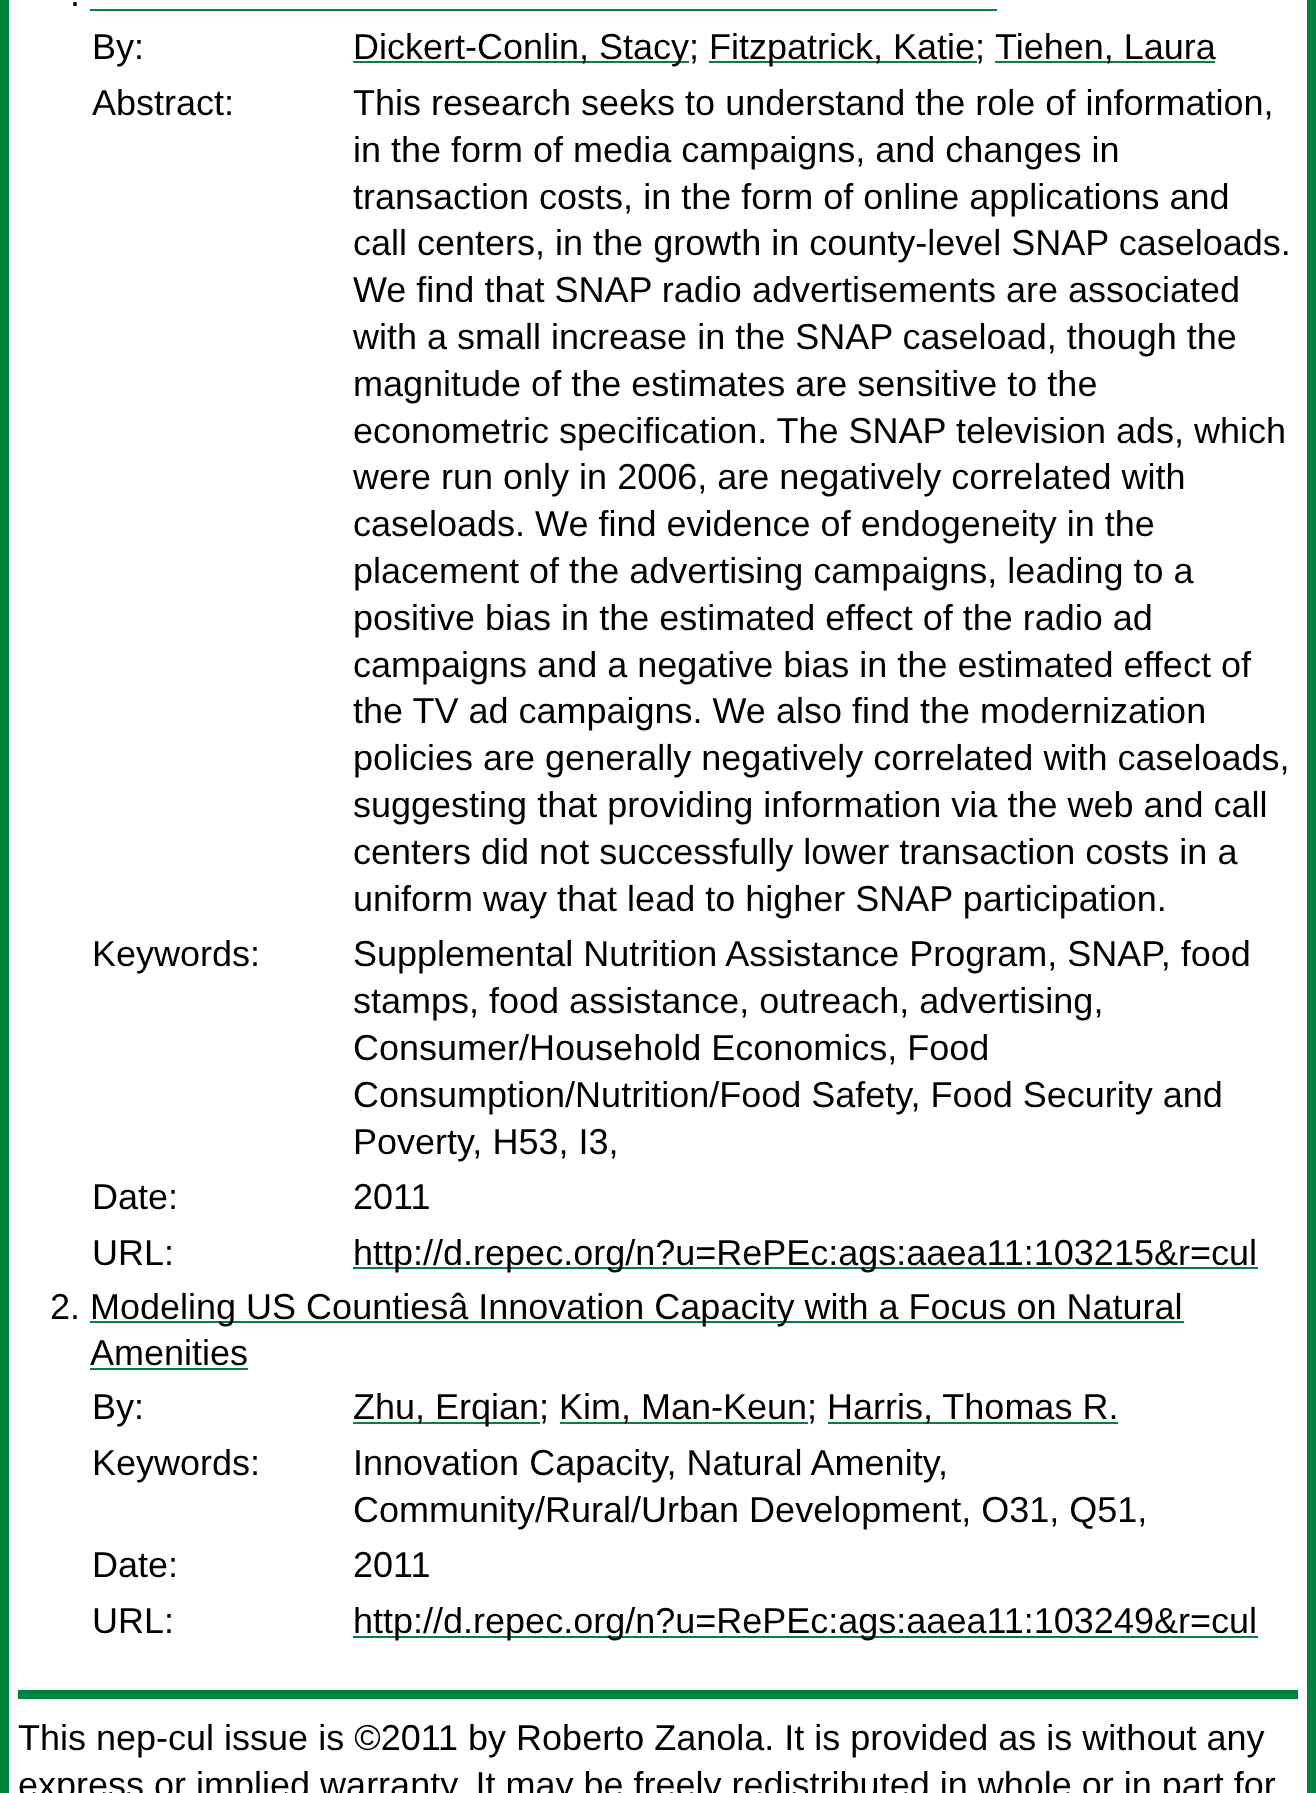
<svg xmlns="http://www.w3.org/2000/svg" width="1316" height="1793" viewBox="0 0 1316 1793">
  <rect width="100%" height="100%" fill="#fff"/>
  <path d="M4.5 -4.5h1307v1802H4.5z" fill="none" stroke="#008241" stroke-width="9"/>
  <path d="M90 9h907v2H90z" fill="#008241"/>
  <path d="M353 61h336v2H353z" fill="#008241"/>
  <path d="M709 61h268v2H709z" fill="#008241"/>
  <path d="M995 61h220v2H995z" fill="#008241"/>
  <path d="M353 1267h905v2H353z" fill="#008241"/>
  <path d="M90 1321h1094v2H90z" fill="#008241"/>
  <path d="M90 1368h158v2H90z" fill="#008241"/>
  <path d="M353 1422h187v2H353z" fill="#008241"/>
  <path d="M560 1422h248v2H560z" fill="#008241"/>
  <path d="M828 1422h290v2H828z" fill="#008241"/>
  <path d="M353 1636h905v2H353z" fill="#008241"/>
  <path d="M18 1690h1280v9H18z" fill="#008241"/>
  <g font-family="Liberation Sans" font-size="36" fill="#000">
    <text x="70" y="6">.</text>
    <text x="92" y="59">By:</text>
    <text x="353" y="59">Dickert-Conlin, Stacy;</text>
    <text x="709" y="59">Fitzpatrick, Katie;</text>
    <text x="995" y="59">Tiehen, Laura</text>
    <text x="92" y="115">Abstract:</text>
    <text x="353" y="115">This research seeks to understand the role of information,</text>
    <text x="353" y="162">in the form of media campaigns, and changes in</text>
    <text x="353" y="209">transaction costs, in the form of online applications and</text>
    <text x="353" y="255">call centers, in the growth in county-level SNAP caseloads.</text>
    <text x="353" y="302">We find that SNAP radio advertisements are associated</text>
    <text x="353" y="349">with a small increase in the SNAP caseload, though the</text>
    <text x="353" y="396">magnitude of the estimates are sensitive to the</text>
    <text x="353" y="443">econometric specification. The SNAP television ads, which</text>
    <text x="353" y="489">were run only in 2006, are negatively correlated with</text>
    <text x="353" y="536">caseloads. We find evidence of endogeneity in the</text>
    <text x="353" y="583">placement of the advertising campaigns, leading to a</text>
    <text x="353" y="630">positive bias in the estimated effect of the radio ad</text>
    <text x="353" y="677">campaigns and a negative bias in the estimated effect of</text>
    <text x="353" y="723">the TV ad campaigns. We also find the modernization</text>
    <text x="353" y="770">policies are generally negatively correlated with caseloads,</text>
    <text x="353" y="817">suggesting that providing information via the web and call</text>
    <text x="353" y="864">centers did not successfully lower transaction costs in a</text>
    <text x="353" y="911">uniform way that lead to higher SNAP participation.</text>
    <text x="92" y="966">Keywords:</text>
    <text x="353" y="966">Supplemental Nutrition Assistance Program, SNAP, food</text>
    <text x="353" y="1013">stamps, food assistance, outreach, advertising,</text>
    <text x="353" y="1060">Consumer/Household Economics, Food</text>
    <text x="353" y="1107">Consumption/Nutrition/Food Safety, Food Security and</text>
    <text x="353" y="1154">Poverty, H53, I3,</text>
    <text x="92" y="1209">Date:</text>
    <text x="353" y="1209">2011</text>
    <text x="92" y="1265">URL:</text>
    <text x="353" y="1265">http://d.repec.org/n?u=RePEc:ags:aaea11:103215&amp;r=cul</text>
    <text x="50" y="1319">2.</text>
    <text x="90" y="1319">Modeling US Countiesâ Innovation Capacity with a Focus on Natural</text>
    <text x="90" y="1365">Amenities</text>
    <text x="92" y="1419">By:</text>
    <text x="353" y="1419">Zhu, Erqian;</text>
    <text x="559" y="1419">Kim, Man-Keun;</text>
    <text x="827" y="1419">Harris, Thomas R.</text>
    <text x="92" y="1475">Keywords:</text>
    <text x="353" y="1475">Innovation Capacity, Natural Amenity,</text>
    <text x="353" y="1522">Community/Rural/Urban Development, O31, Q51,</text>
    <text x="92" y="1577">Date:</text>
    <text x="353" y="1577">2011</text>
    <text x="92" y="1633">URL:</text>
    <text x="353" y="1633">http://d.repec.org/n?u=RePEc:ags:aaea11:103249&amp;r=cul</text>
    <text x="18" y="1750">This nep-cul issue is ©2011 by Roberto Zanola. It is provided as is without any</text>
    <text x="18" y="1797">express or implied warranty. It may be freely redistributed in whole or in part for</text>
  </g>
</svg>
